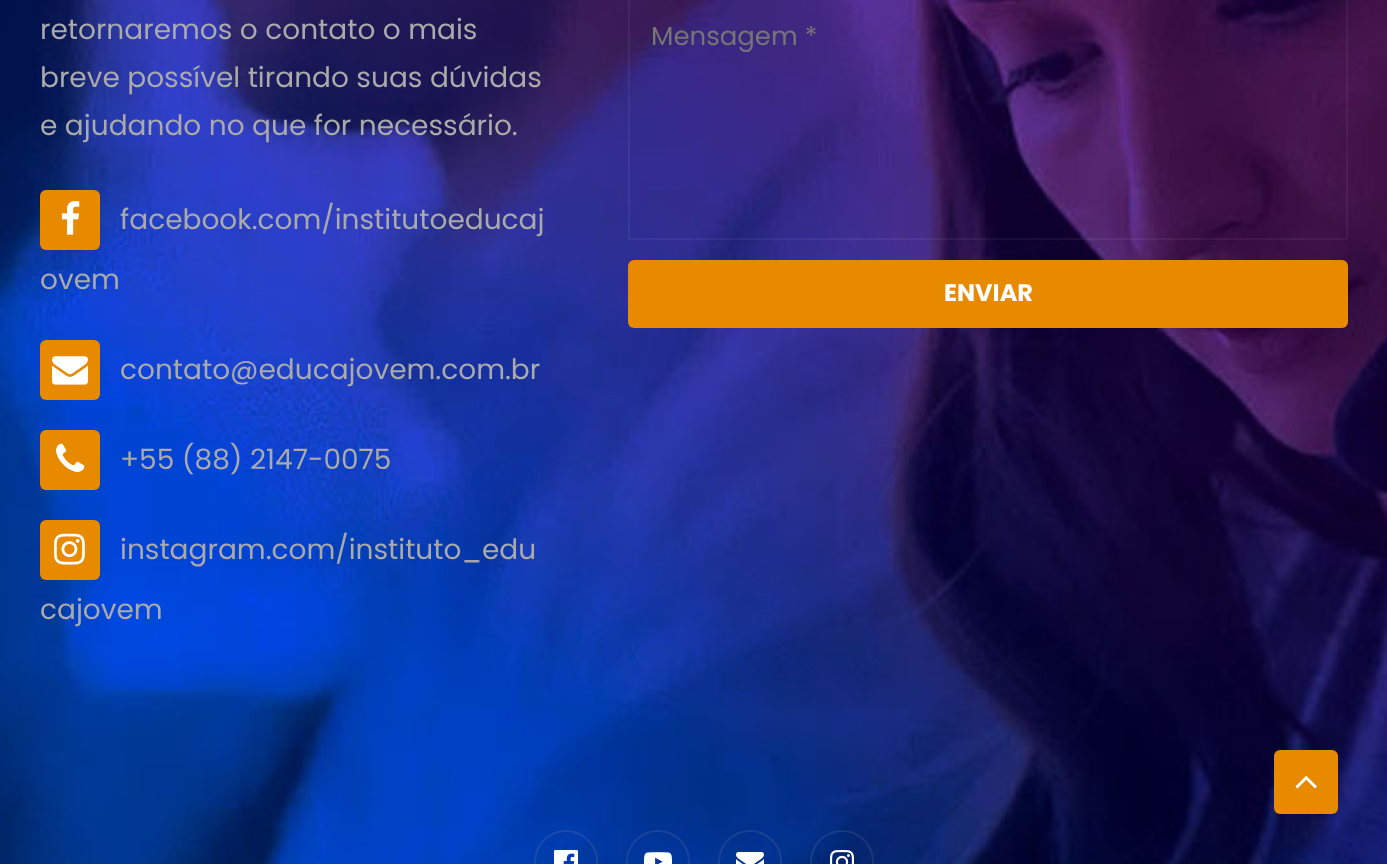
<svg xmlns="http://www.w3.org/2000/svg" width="1387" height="864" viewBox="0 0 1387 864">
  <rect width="100%" height="100%" fill="#fff"/>
  <image x="0" y="0" width="1387" height="864" href="img/1.png"/>
  <rect x="40" y="190" width="60" height="60" rx="6" fill="#e78a00"/>
  <image x="61" y="201" width="19" height="34" href="img/2.png"/>
  <rect x="40" y="340" width="60" height="60" rx="6" fill="#e78a00"/>
  <image x="52" y="356" width="36" height="29" href="img/3.png"/>
  <rect x="40" y="430" width="60" height="60" rx="6" fill="#e78a00"/>
  <image x="56" y="443" width="29" height="29" href="img/4.png"/>
  <rect x="40" y="520" width="60" height="60" rx="6" fill="#e78a00"/>
  <image x="54" y="533" width="31" height="32" href="img/5.png"/>
  <path d="M629 -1h718v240H629z" fill="none" stroke="#ffffff0d" stroke-width="2"/>
  <rect x="628" y="260" width="720" height="68" rx="6" fill="#e78a00"/>
  <circle cx="566" cy="862" r="31" fill="none" stroke="#9e9e9e26" stroke-width="2"/>
  <image x="554" y="850" width="24" height="14" href="img/6.png"/>
  <circle cx="658" cy="862" r="31" fill="none" stroke="#9e9e9e26" stroke-width="2"/>
  <image x="644" y="852" width="28" height="12" href="img/7.png"/>
  <circle cx="750" cy="862" r="31" fill="none" stroke="#9e9e9e26" stroke-width="2"/>
  <image x="736" y="852" width="28" height="12" href="img/8.png"/>
  <circle cx="842" cy="862" r="31" fill="none" stroke="#9e9e9e26" stroke-width="2"/>
  <image x="830" y="850" width="24" height="14" href="img/9.png"/>
  <rect x="1274" y="750" width="64" height="64" rx="6" fill="#e78a00"/>
  <image x="1295" y="776" width="22" height="13" href="img/10.png"/>
  <g font-family="Poppins" font-size="28" fill="#aaa">
    <text x="40" y="39">retornaremos o contato o mais</text>
    <text x="40" y="87">breve possível tirando suas dúvidas</text>
    <text x="40" y="135">e ajudando no que for necessário.</text>
    <text x="120" y="229">facebook.com/institutoeducaj</text>
    <text x="40" y="289">ovem</text>
    <text x="120" y="379">contato@educajovem.com.br</text>
    <text x="120" y="469">+55 (88) 2147-0075</text>
    <text x="120" y="559">instagram.com/instituto_edu</text>
    <text x="40" y="619">cajovem</text>
  </g>
  <text x="651" y="45" font-family="Poppins" font-size="26" fill="#757575">Mensagem *</text>
  <text x="944" y="301" font-family="Poppins" font-size="24" font-weight="bold" fill="#fff">ENVIAR</text>
</svg>
